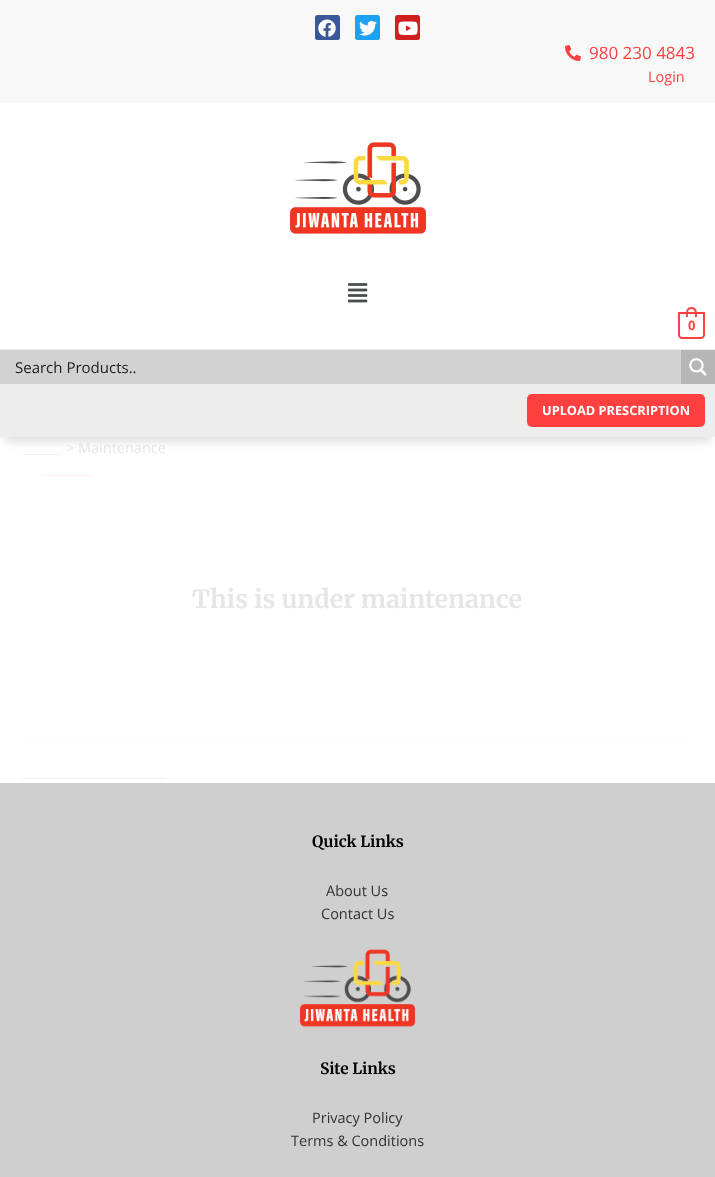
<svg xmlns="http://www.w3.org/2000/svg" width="715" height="1177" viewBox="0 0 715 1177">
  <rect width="100%" height="100%" fill="#fff"/>
  <path d="M0 0h715v103H0z" fill="#f8f8f8"/>
  <rect x="315" y="15" width="25" height="25" rx="2.5" fill="#3b5998"/>
  <image x="318" y="19" width="18" height="18" href="img/1.png"/>
  <rect x="355" y="15" width="25" height="25" rx="2.5" fill="#1da1f2"/>
  <image x="359" y="20" width="18" height="16" href="img/2.png"/>
  <rect x="395" y="15" width="25" height="25" rx="2.5" fill="#cd201f"/>
  <image x="398" y="21" width="20" height="14" href="img/3.png"/>
  <image x="565" y="45" width="16" height="16" href="img/4.png"/>
  <image x="289" y="142" width="138" height="92" href="img/5.png"/>
  <image x="348" y="283" width="20" height="20" href="img/6.png"/>
  <path d="M679 313H704V335C704 336.5 702.5 338 701 338H682C680.5 338 679 336.5 679 335Z" fill="none" stroke="#ff4040" stroke-width="2"/>
  <path d="M691.5 307C697.5 307 697 313 697 317H686C686 313 685.5 307 691.5 307ZM691.5 309C695.5 309 695 314 695 317H688C688 314 687 309 691.5 309Z" fill="#ff4040" fill-rule="evenodd"/>
  <path d="M20 454h41v1H20z" fill="#ffecec"/>
  <path d="M4 362h707v80H4z" fill="#aeaeae63" filter="blur(4.5px)"/>
  <path d="M0 349h715v88H0z" fill="#ededed"/>
  <path d="M0 350h681v34H0z" fill="#d2d2d2"/>
  <path d="M681 350h34v34H681z" fill="#b6b6b6"/>
  <image x="689" y="358" width="18" height="18" href="img/7.png"/>
  <rect x="527" y="394" width="178" height="33" rx="5" fill="#ff4040"/>
  <path d="M41 475h52v1H41z" fill="#ffecec"/>
  <path d="M20 737h675v1H20z" fill="#fcfcfc"/>
  <path d="M22 778h144v1H22z" fill="#ffecec"/>
  <path d="M0 783h715v394H0z" fill="#cfcfcf"/>
  <image x="299" y="949" width="117" height="78" href="img/8.png"/>
  <text x="589" y="59" font-family="Open Sans" font-size="17" fill="#ff4040">980 230 4843</text>
  <text x="648" y="82" font-family="Open Sans" font-size="14.5" fill="#ff4040">Login</text>
  <text x="688" y="330" font-family="Open Sans" font-size="13" font-weight="bold" fill="#ff4040">0</text>
  <text x="15" y="373" font-family="Open Sans" font-size="15" fill="#202020">Search Products..</text>
  <text x="542" y="415" font-family="Open Sans" font-size="12.75" font-weight="bold" fill="#fff">UPLOAD PRESCRIPTION</text>
  <g font-family="Open Sans" font-size="14.5" fill="#e6e6e6">
    <text x="66" y="453">&gt;</text>
    <text x="78" y="453">Maintenance</text>
  </g>
  <text x="192" y="608" font-family="Merriweather" font-size="25" font-weight="300" fill="#e6e6e6">This is under maintenance</text>
  <text x="312" y="847" font-family="Merriweather" font-size="15.5" font-weight="300" fill="#000">Quick Links</text>
  <g font-family="Open Sans" font-size="14.5" fill="#323232">
    <text x="326" y="896">About Us</text>
    <text x="321" y="919">Contact Us</text>
  </g>
  <text x="320" y="1074" font-family="Merriweather" font-size="15.5" font-weight="300" fill="#000">Site Links</text>
  <g font-family="Open Sans" font-size="14.5" fill="#323232">
    <text x="312" y="1123">Privacy Policy</text>
    <text x="291" y="1146">Terms &amp; Conditions</text>
  </g>
</svg>
